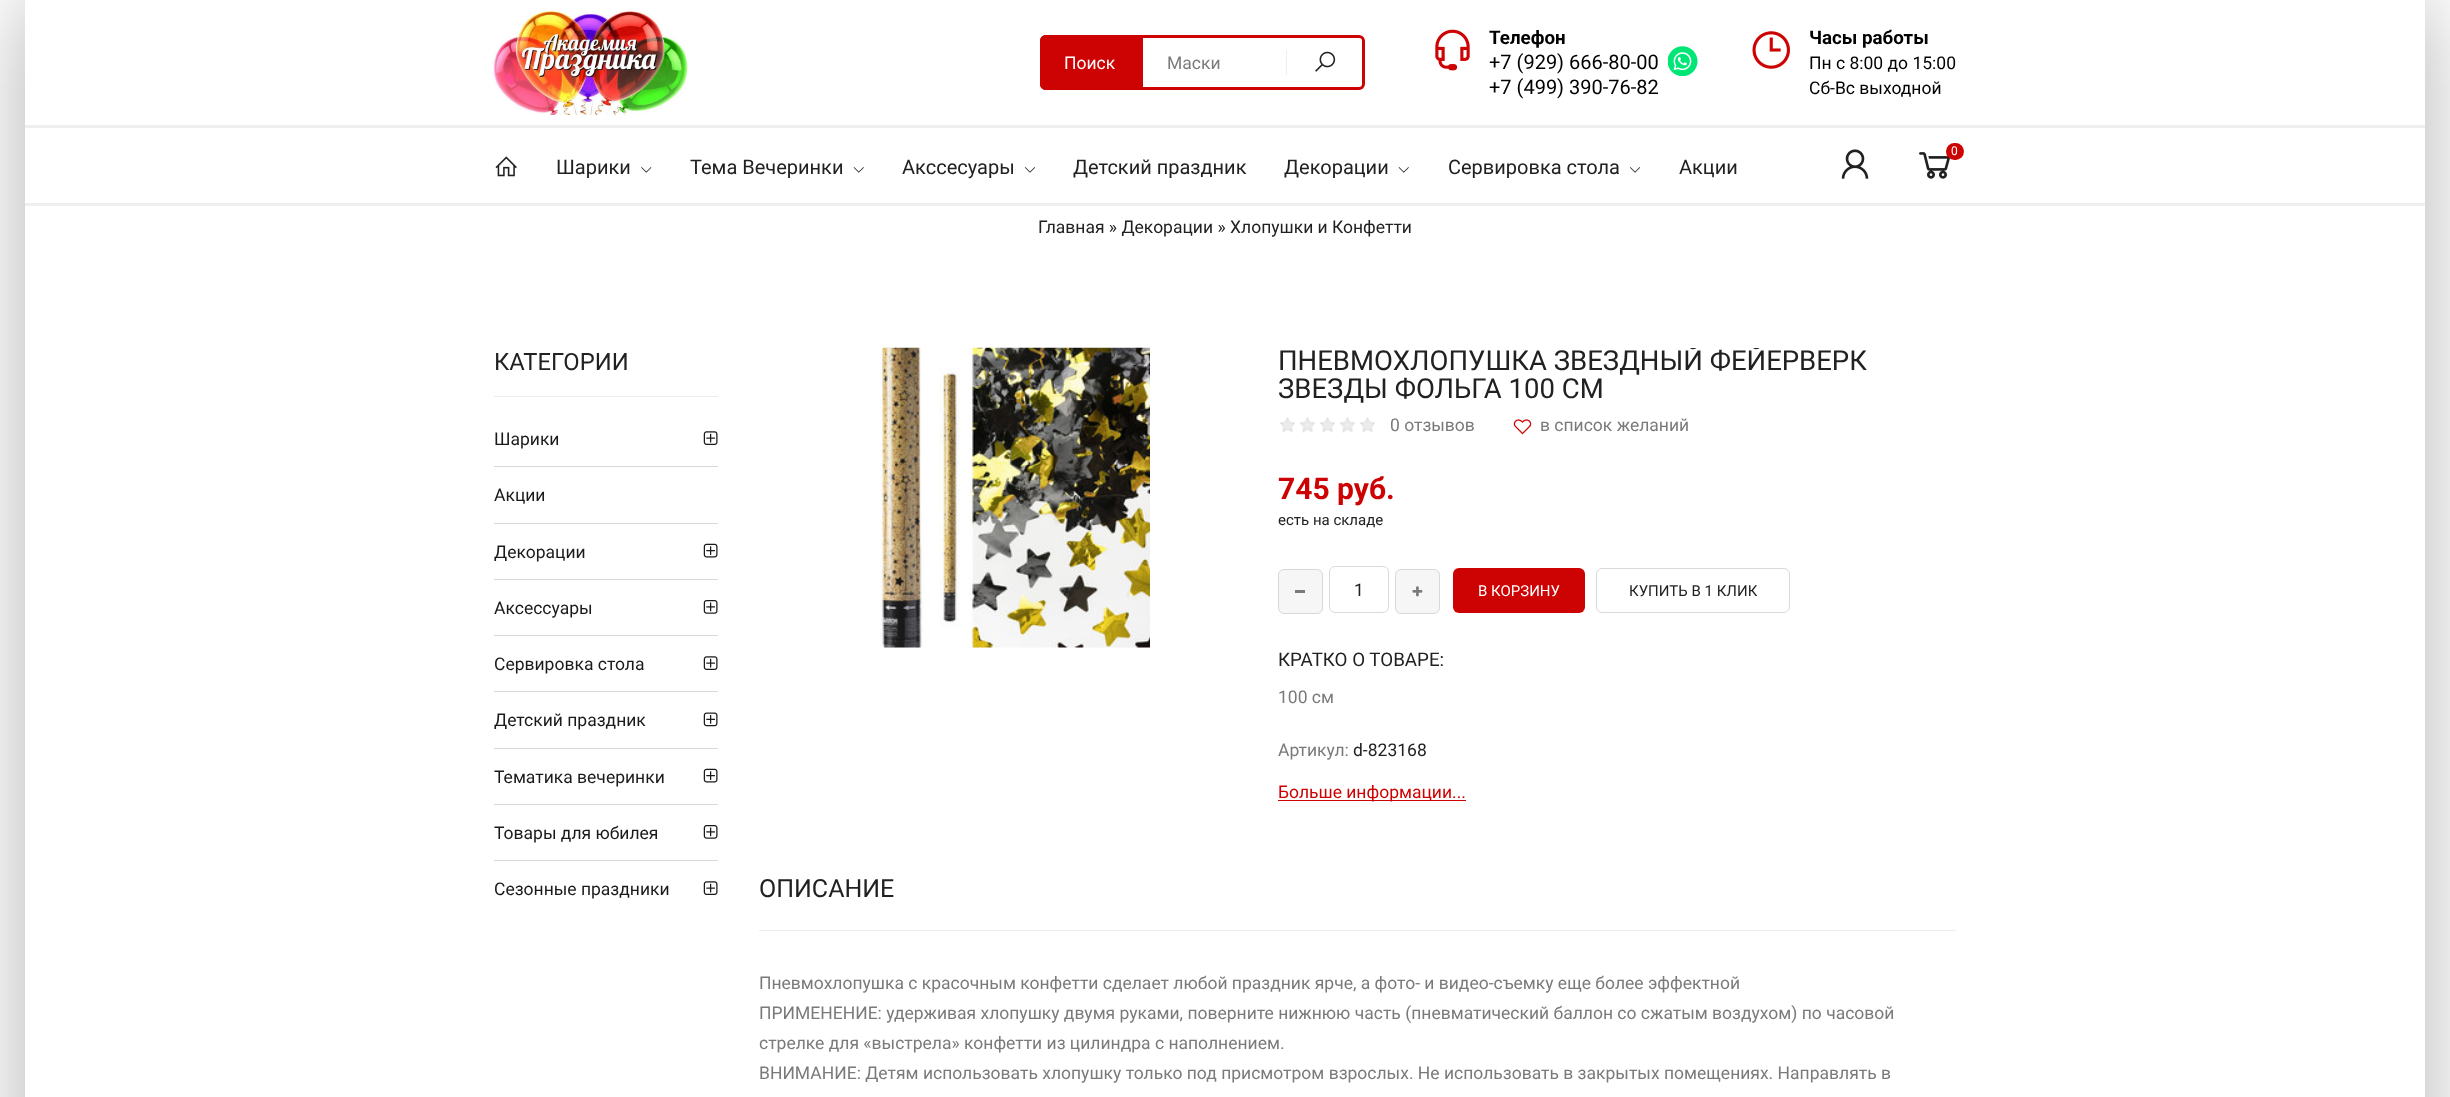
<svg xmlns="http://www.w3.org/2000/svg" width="2450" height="1097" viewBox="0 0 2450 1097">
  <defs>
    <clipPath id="clip1"><path d="M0 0H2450V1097H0ZM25 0H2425V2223H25Z" clip-rule="evenodd"/></clipPath>
    <clipPath id="clip2"><path d="M759 348h1197v462H759z"/></clipPath>
  </defs>
  <rect width="100%" height="100%" fill="#fff"/>
  <g clip-path="url(#clip1)">
    <path d="M25 0h2400v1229H25z" fill="#0000004d" filter="blur(44px)"/>
  </g>
  <path d="M25 125h2400v3H25z" fill="#efefef"/>
  <image x="493" y="11" width="195" height="104" href="img/1.png"/>
  <rect x="1041.5" y="36.5" width="322" height="52" rx="4.5" fill="none" stroke="#cd0202" stroke-width="3"/>
  <path d="M1046 35H1143V90H1046C1042.5 90 1040 87.5 1040 84V41C1040 37.5 1042.5 35 1046 35Z" fill="#cd0202"/>
  <path d="M1286 50h1v25H1286z" fill="#ededed"/>
  <image x="1315" y="51" width="21" height="21" href="img/2.png"/>
  <image x="1435" y="29" width="35" height="42" href="img/3.png"/>
  <image x="1668" y="46" width="30" height="30" href="img/4.png"/>
  <image x="1752" y="31" width="38" height="38" href="img/5.png"/>
  <path d="M25 203h2400v3H25z" fill="#efefef"/>
  <image x="495" y="156" width="22" height="21" href="img/6.png"/>
  <image x="641" y="167" width="11" height="6" href="img/7.png"/>
  <image x="853" y="167" width="11" height="6" href="img/8.png"/>
  <image x="1024" y="167" width="12" height="6" href="img/9.png"/>
  <image x="1398" y="167" width="11" height="6" href="img/8.png"/>
  <image x="1629" y="167" width="12" height="6" href="img/9.png"/>
  <image x="1841" y="149" width="28" height="30" href="img/10.png"/>
  <image x="1919" y="152" width="31" height="27" href="img/11.png"/>
  <rect x="1946" y="143" width="18" height="17" rx="8.5" fill="#cd0202"/>
  <path d="M494 396h224v1H494z" fill="#ededed"/>
  <image x="703" y="431" width="15" height="14" href="img/12.png"/>
  <path d="M494 466h224v1H494z" fill="#d8d8d8"/>
  <path d="M494 523h224v1H494z" fill="#d8d8d8"/>
  <image x="703" y="543" width="15" height="15" href="img/13.png"/>
  <path d="M494 579h224v1H494z" fill="#d8d8d8"/>
  <image x="703" y="600" width="15" height="14" href="img/14.png"/>
  <path d="M494 635h224v1H494z" fill="#d8d8d8"/>
  <image x="703" y="656" width="15" height="14" href="img/12.png"/>
  <path d="M494 691h224v1H494z" fill="#d8d8d8"/>
  <image x="703" y="712" width="15" height="15" href="img/15.png"/>
  <path d="M494 748h224v1H494z" fill="#d8d8d8"/>
  <image x="703" y="768" width="15" height="15" href="img/13.png"/>
  <path d="M494 804h224v1H494z" fill="#d8d8d8"/>
  <image x="703" y="825" width="15" height="14" href="img/14.png"/>
  <path d="M494 860h224v1H494z" fill="#d8d8d8"/>
  <image x="703" y="881" width="15" height="14" href="img/12.png"/>
  <image x="880" y="347" width="270" height="301" href="img/16.png"/>
  <image x="1280" y="417" width="95" height="16" href="img/17.png"/>
  <image x="1513" y="419" width="19" height="16" href="img/18.png"/>
  <rect x="1278.5" y="569.5" width="44" height="44" rx="5.5" fill="#f6f6f6" stroke="#d8d8d8"/>
  <path d="M1295 590h10v3H1295z" fill="#7a7a7a"/>
  <rect x="1329.5" y="566.5" width="59" height="46" rx="5.5" fill="none" stroke="#dbdbdb"/>
  <rect x="1395.5" y="569.5" width="44" height="44" rx="5.5" fill="#f6f6f6" stroke="#d8d8d8"/>
  <image x="1412" y="586" width="11" height="11" href="img/19.png"/>
  <rect x="1453" y="568" width="132" height="45" rx="6" fill="#cd0202"/>
  <rect x="1596.5" y="568.5" width="193" height="44" rx="5.5" fill="none" stroke="#dadada"/>
  <path d="M1278 800h188v1H1278z" fill="#cd0202"/>
  <path d="M759 930h1197v1H759z" fill="#ededed"/>
  <text x="1064" y="69" font-family="Roboto" font-size="17.5" fill="#fff">Поиск</text>
  <text x="1167" y="69" font-family="Roboto" font-size="17.5" fill="#7a7a7a">Маски</text>
  <text x="1489" y="44" font-family="Roboto" font-size="18.75" font-weight="bold" fill="#000">Телефон</text>
  <g font-family="Roboto" font-size="20" fill="#000">
    <text x="1489" y="69">+7 (929) 666-80-00</text>
    <text x="1489" y="94">+7 (499) 390-76-82</text>
  </g>
  <text x="1809" y="44" font-family="Roboto" font-size="18.75" font-weight="bold" fill="#000">Часы работы</text>
  <g font-family="Roboto" font-size="17.5" fill="#000">
    <text x="1809" y="69">Пн с 8:00 до 15:00</text>
    <text x="1809" y="94">Сб-Вс выходной</text>
  </g>
  <g font-family="Roboto" font-size="20" fill="#212121">
    <text x="556" y="174">Шарики</text>
    <text x="690" y="174">Тема Вечеринки</text>
    <text x="902" y="174">Акссесуары</text>
    <text x="1073" y="174">Детский праздник</text>
    <text x="1284" y="174">Декорации</text>
    <text x="1448" y="174">Сервировка стола</text>
    <text x="1679" y="174">Акции</text>
  </g>
  <text x="1951" y="155" font-family="Roboto" font-size="12" fill="#fff">0</text>
  <text x="1038" y="233" font-family="Roboto" font-size="17.5" fill="#212121">Главная » Декорации » Хлопушки и Конфетти</text>
  <text x="494" y="370" font-family="Roboto" font-size="23.75" fill="#212121">КАТЕГОРИИ</text>
  <g font-family="Roboto" font-size="17.5" fill="#1a1a1a">
    <text x="494" y="445">Шарики</text>
    <text x="494" y="501">Акции</text>
    <text x="494" y="558">Декорации</text>
    <text x="494" y="614">Аксессуары</text>
    <text x="494" y="670">Сервировка стола</text>
    <text x="494" y="726">Детский праздник</text>
    <text x="494" y="783">Тематика вечеринки</text>
    <text x="494" y="839">Товары для юбилея</text>
    <text x="494" y="895">Сезонные праздники</text>
  </g>
  <g clip-path="url(#clip2)">
    <text x="1278" y="370" font-family="Roboto" font-size="27.5" fill="#212121">ПНЕВМОХЛОПУШКА ЗВЕЗДНЫЙ ФЕЙЕРВЕРК</text>
  </g>
  <text x="1278" y="398" font-family="Roboto" font-size="27.5" fill="#212121">ЗВЕЗДЫ ФОЛЬГА 100 СМ</text>
  <g font-family="Roboto" font-size="17.5" fill="#7a7a7a">
    <text x="1390" y="431">0 отзывов</text>
    <text x="1540" y="431">в список желаний</text>
  </g>
  <text x="1278" y="499" font-family="Roboto" font-size="30" font-weight="bold" fill="#cd0202">745 руб.</text>
  <text x="1278" y="525" font-family="Roboto" font-size="15" fill="#212121">есть на складе</text>
  <text x="1354" y="596" font-family="Roboto" font-size="17.5" fill="#212121">1</text>
  <text x="1478" y="596" font-family="Roboto" font-size="15" fill="#fff">В КОРЗИНУ</text>
  <text x="1629" y="596" font-family="Roboto" font-size="15" fill="#212121">КУПИТЬ В 1 КЛИК</text>
  <text x="1278" y="666" font-family="Roboto" font-size="18.75" fill="#212121">КРАТКО О ТОВАРЕ:</text>
  <g font-family="Roboto" font-size="17.5" fill="#7a7a7a">
    <text x="1278" y="703">100 см</text>
    <text x="1278" y="756">Артикул:</text>
  </g>
  <text x="1353" y="756" font-family="Roboto" font-size="17.5" fill="#212121">d-823168</text>
  <text x="1278" y="798" font-family="Roboto" font-size="17.5" fill="#cd0202">Больше информации...</text>
  <text x="759" y="897" font-family="Roboto" font-size="25" fill="#212121">ОПИСАНИЕ</text>
  <g font-family="Roboto" font-size="17.5" fill="#7a7a7a">
    <text x="759" y="989">Пневмохлопушка с красочным конфетти сделает любой праздник ярче, а фото- и видео-съемку еще более эффектной</text>
    <text x="759" y="1019">ПРИМЕНЕНИЕ: удерживая хлопушку двумя руками, поверните нижнюю часть (пневматический баллон со сжатым воздухом) по часовой</text>
    <text x="759" y="1049">стрелке для «выстрела» конфетти из цилиндра с наполнением.</text>
    <text x="759" y="1079">ВНИМАНИЕ: Детям использовать хлопушку только под присмотром взрослых. Не использовать в закрытых помещениях. Направлять в</text>
  </g>
</svg>
